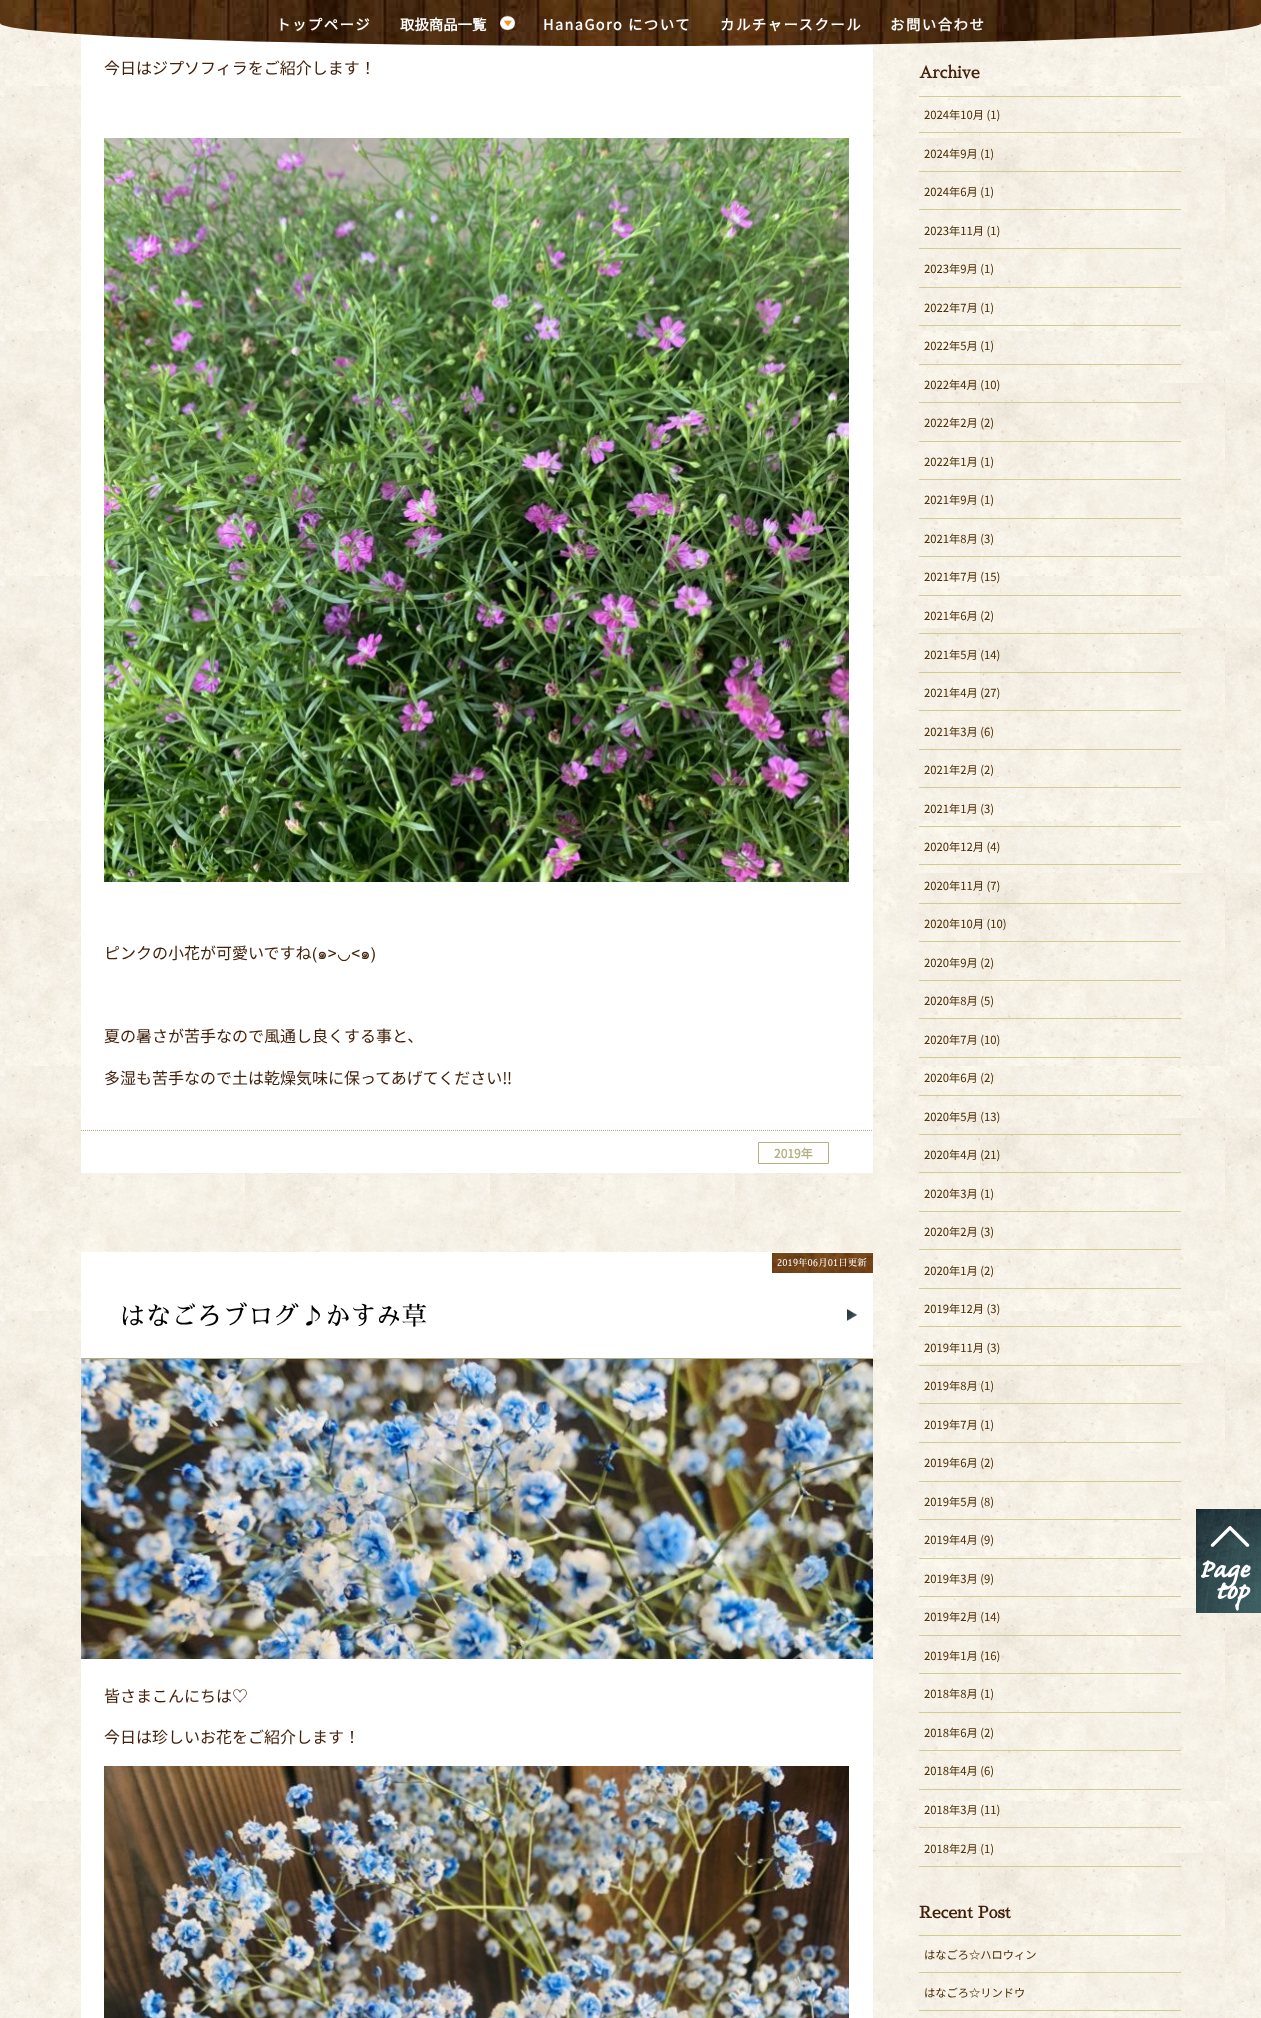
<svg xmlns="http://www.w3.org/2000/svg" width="1261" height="2018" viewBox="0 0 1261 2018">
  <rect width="100%" height="100%" fill="#fff"/>
  <image x="0" y="23" width="1261" height="1995" href="img/3.png"/>
  <path d="M81 34h792v1139H81z" fill="#fff"/>
  <image x="0" y="0" width="1261" height="46" href="img/1.png"/>
  <image x="500" y="15" width="15" height="16" href="img/2.png"/>
  <image x="104" y="138" width="745" height="744" href="img/4.png"/>
  <path d="M81 1130.5H873" fill="none" stroke="#b5b082" stroke-dasharray="1 1"/>
  <path d="M758.5 1142.5h70v21H758.5z" fill="none" stroke="#b5b082"/>
  <path d="M81 1252h792v766H81z" fill="#fff"/>
  <image x="847" y="1309" width="10" height="12" href="img/5.png"/>
  <path d="M81 1358h792v1H81z" fill="#b5b082"/>
  <image x="772" y="1253" width="101" height="20" href="img/6.png"/>
  <image x="81" y="1359" width="792" height="300" href="img/7.png"/>
  <image x="104" y="1766" width="745" height="252" href="img/8.png"/>
  <path d="M919 96h262v1H919z" fill="#d1ca94"/>
  <path d="M919 132h262v1H919z" fill="#d1ca94"/>
  <path d="M919 171h262v1H919z" fill="#d1ca94"/>
  <path d="M919 209h262v1H919z" fill="#d1ca94"/>
  <path d="M919 248h262v1H919z" fill="#d1ca94"/>
  <path d="M919 287h262v1H919z" fill="#d1ca94"/>
  <path d="M919 325h262v1H919z" fill="#d1ca94"/>
  <path d="M919 364h262v1H919z" fill="#d1ca94"/>
  <path d="M919 402h262v1H919z" fill="#d1ca94"/>
  <path d="M919 441h262v1H919z" fill="#d1ca94"/>
  <path d="M919 479h262v1H919z" fill="#d1ca94"/>
  <path d="M919 518h262v1H919z" fill="#d1ca94"/>
  <path d="M919 556h262v1H919z" fill="#d1ca94"/>
  <path d="M919 595h262v1H919z" fill="#d1ca94"/>
  <path d="M919 633h262v1H919z" fill="#d1ca94"/>
  <path d="M919 672h262v1H919z" fill="#d1ca94"/>
  <path d="M919 710h262v1H919z" fill="#d1ca94"/>
  <path d="M919 749h262v1H919z" fill="#d1ca94"/>
  <path d="M919 787h262v1H919z" fill="#d1ca94"/>
  <path d="M919 826h262v1H919z" fill="#d1ca94"/>
  <path d="M919 864h262v1H919z" fill="#d1ca94"/>
  <path d="M919 903h262v1H919z" fill="#d1ca94"/>
  <path d="M919 941h262v1H919z" fill="#d1ca94"/>
  <path d="M919 980h262v1H919z" fill="#d1ca94"/>
  <path d="M919 1018h262v1H919z" fill="#d1ca94"/>
  <path d="M919 1057h262v1H919z" fill="#d1ca94"/>
  <path d="M919 1095h262v1H919z" fill="#d1ca94"/>
  <path d="M919 1134h262v1H919z" fill="#d1ca94"/>
  <path d="M919 1172h262v1H919z" fill="#d1ca94"/>
  <path d="M919 1211h262v1H919z" fill="#d1ca94"/>
  <path d="M919 1249h262v1H919z" fill="#d1ca94"/>
  <path d="M919 1288h262v1H919z" fill="#d1ca94"/>
  <path d="M919 1326h262v1H919z" fill="#d1ca94"/>
  <path d="M919 1365h262v1H919z" fill="#d1ca94"/>
  <path d="M919 1403h262v1H919z" fill="#d1ca94"/>
  <path d="M919 1442h262v1H919z" fill="#d1ca94"/>
  <path d="M919 1481h262v1H919z" fill="#d1ca94"/>
  <path d="M919 1519h262v1H919z" fill="#d1ca94"/>
  <path d="M919 1558h262v1H919z" fill="#d1ca94"/>
  <path d="M919 1596h262v1H919z" fill="#d1ca94"/>
  <path d="M919 1635h262v1H919z" fill="#d1ca94"/>
  <path d="M919 1673h262v1H919z" fill="#d1ca94"/>
  <path d="M919 1712h262v1H919z" fill="#d1ca94"/>
  <path d="M919 1750h262v1H919z" fill="#d1ca94"/>
  <path d="M919 1789h262v1H919z" fill="#d1ca94"/>
  <path d="M919 1827h262v1H919z" fill="#d1ca94"/>
  <path d="M919 1866h262v1H919z" fill="#d1ca94"/>
  <path d="M919 1935h262v1H919z" fill="#d1ca94"/>
  <path d="M919 1972h262v1H919z" fill="#d1ca94"/>
  <path d="M919 2010h262v1H919z" fill="#d1ca94"/>
  <image x="1196" y="1509" width="65" height="104" href="img/9.png"/>
  <text x="276" y="30" font-family="Noto Sans JP" font-size="14.4" font-weight="bold" letter-spacing="1.5" fill="#fff">トップページ</text>
  <text x="400" y="30" font-family="Noto Sans JP" font-size="14.4" font-weight="bold" fill="#fff">取扱商品一覧</text>
  <g font-family="Noto Sans JP" font-size="14.4" font-weight="bold" letter-spacing="1.5" fill="#fff">
    <text x="543" y="30">HanaGoro について</text>
    <text x="720" y="30">カルチャースクール</text>
    <text x="890" y="30">お問い合わせ</text>
  </g>
  <g font-family="Noto Sans JP" font-size="16" font-weight="100" fill="#42210b">
    <text x="104" y="74">今日はジプソフィラをご紹介します！</text>
    <text x="104" y="959">ピンクの小花が可愛いですね</text>
  </g>
  <text x="312" y="959" font-family="Loma" font-size="16" fill="#42210b">(๑&gt;</text>
  <text x="337" y="959" font-family="DejaVu Sans" font-size="16" fill="#42210b">◡</text>
  <text x="351" y="959" font-family="Loma" font-size="16" fill="#42210b">&lt;๑)</text>
  <g font-family="Noto Sans JP" font-size="16" font-weight="100" fill="#42210b">
    <text x="104" y="1042">夏の暑さが苦手なので風通し良くする事と、</text>
    <text x="104" y="1084">多湿も苦手なので土は乾燥気味に保ってあげてください‼︎</text>
  </g>
  <text x="774" y="1158" font-family="Noto Sans JP" font-size="12" font-weight="bold" fill="#b5b082">2019年</text>
  <text x="777" y="1266" font-family="Sawarabi Mincho" font-size="9.5" fill="#fff">2019年06月01日更新</text>
  <text x="120" y="1325" font-family="Sawarabi Mincho" font-size="25.6" fill="#000">はなごろブログ♪かすみ草</text>
  <g font-family="Noto Sans JP" font-size="16" font-weight="100" fill="#42210b">
    <text x="104" y="1702">皆さまこんにちは♡</text>
    <text x="104" y="1743">今日は珍しいお花をご紹介します！</text>
  </g>
  <text x="919" y="78" font-family="Sawarabi Mincho" font-size="16" font-weight="bold" fill="#42210b">Archive</text>
  <g font-family="Noto Sans JP" font-size="11.25" font-weight="100" fill="#472a00">
    <text x="924" y="119">2024年10月 (1)</text>
    <text x="924" y="158">2024年9月 (1)</text>
    <text x="924" y="196">2024年6月 (1)</text>
    <text x="924" y="235">2023年11月 (1)</text>
    <text x="924" y="273">2023年9月 (1)</text>
    <text x="924" y="312">2022年7月 (1)</text>
    <text x="924" y="350">2022年5月 (1)</text>
    <text x="924" y="389">2022年4月 (10)</text>
    <text x="924" y="427">2022年2月 (2)</text>
    <text x="924" y="466">2022年1月 (1)</text>
    <text x="924" y="504">2021年9月 (1)</text>
    <text x="924" y="543">2021年8月 (3)</text>
    <text x="924" y="581">2021年7月 (15)</text>
    <text x="924" y="620">2021年6月 (2)</text>
    <text x="924" y="659">2021年5月 (14)</text>
    <text x="924" y="697">2021年4月 (27)</text>
    <text x="924" y="736">2021年3月 (6)</text>
    <text x="924" y="774">2021年2月 (2)</text>
    <text x="924" y="813">2021年1月 (3)</text>
    <text x="924" y="851">2020年12月 (4)</text>
    <text x="924" y="890">2020年11月 (7)</text>
    <text x="924" y="928">2020年10月 (10)</text>
    <text x="924" y="967">2020年9月 (2)</text>
    <text x="924" y="1005">2020年8月 (5)</text>
    <text x="924" y="1044">2020年7月 (10)</text>
    <text x="924" y="1082">2020年6月 (2)</text>
    <text x="924" y="1121">2020年5月 (13)</text>
    <text x="924" y="1159">2020年4月 (21)</text>
    <text x="924" y="1198">2020年3月 (1)</text>
    <text x="924" y="1236">2020年2月 (3)</text>
    <text x="924" y="1275">2020年1月 (2)</text>
    <text x="924" y="1313">2019年12月 (3)</text>
    <text x="924" y="1352">2019年11月 (3)</text>
    <text x="924" y="1390">2019年8月 (1)</text>
    <text x="924" y="1429">2019年7月 (1)</text>
    <text x="924" y="1467">2019年6月 (2)</text>
    <text x="924" y="1506">2019年5月 (8)</text>
    <text x="924" y="1544">2019年4月 (9)</text>
    <text x="924" y="1583">2019年3月 (9)</text>
    <text x="924" y="1621">2019年2月 (14)</text>
    <text x="924" y="1660">2019年1月 (16)</text>
    <text x="924" y="1698">2018年8月 (1)</text>
    <text x="924" y="1737">2018年6月 (2)</text>
    <text x="924" y="1775">2018年4月 (6)</text>
    <text x="924" y="1814">2018年3月 (11)</text>
    <text x="924" y="1853">2018年2月 (1)</text>
  </g>
  <text x="919" y="1918" font-family="Sawarabi Mincho" font-size="16" font-weight="bold" fill="#42210b">Recent Post</text>
  <g font-family="Noto Sans JP" font-size="11.25" font-weight="100" fill="#472a00">
    <text x="924" y="1959">はなごろ☆ハロウィン</text>
    <text x="924" y="1997">はなごろ☆リンドウ</text>
  </g>
</svg>
